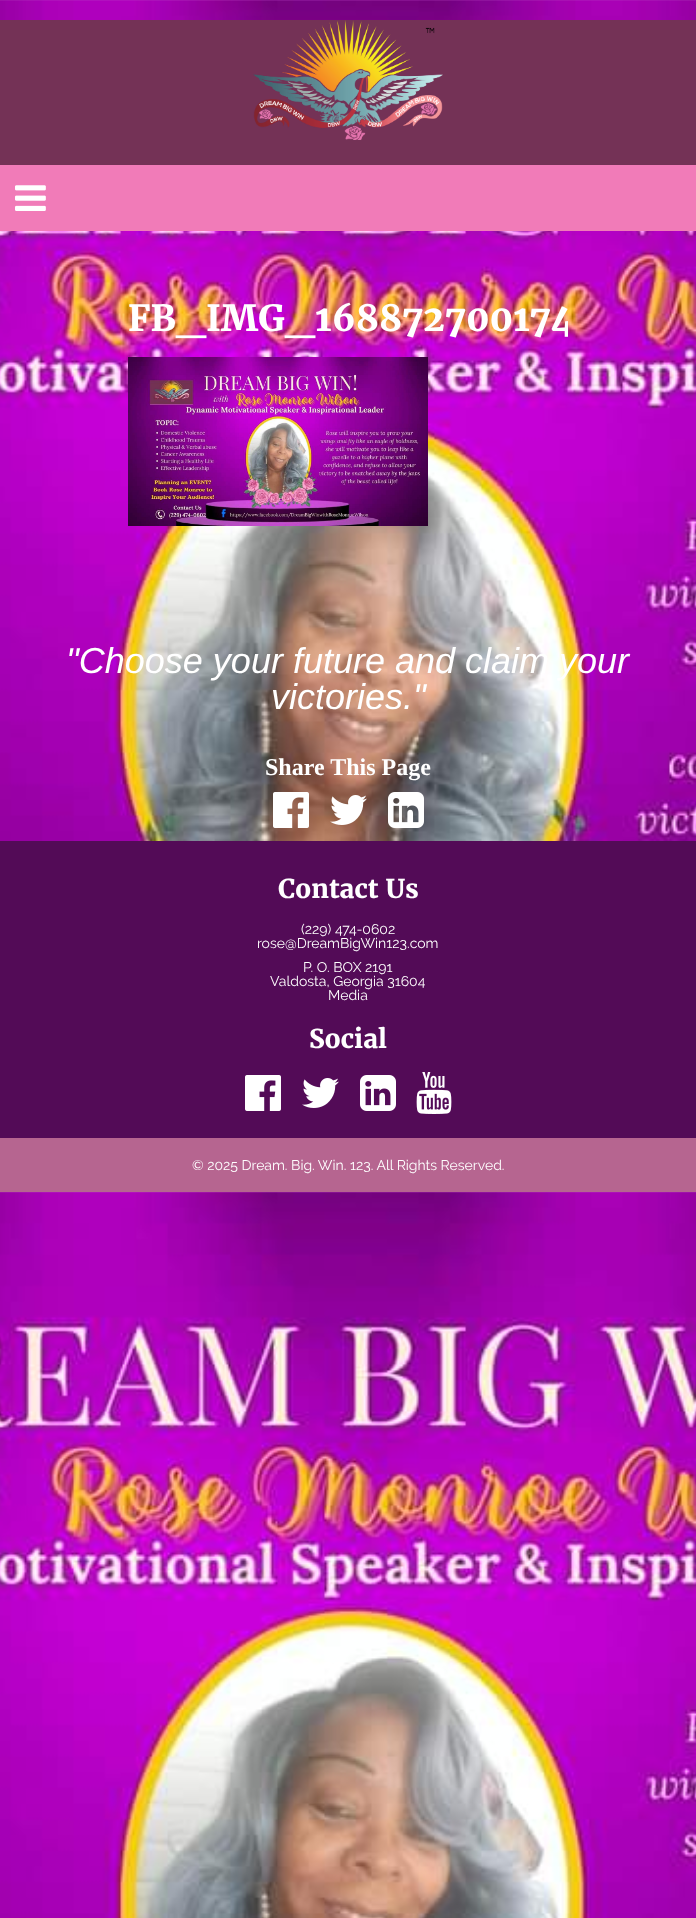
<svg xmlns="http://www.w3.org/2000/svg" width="696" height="1918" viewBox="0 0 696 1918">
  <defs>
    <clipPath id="clip1"><path d="M128 251h440v332H128z"/></clipPath>
  </defs>
  <rect width="100%" height="100%" fill="#fff"/>
  <image x="0" y="0" width="696" height="1918" href="img/1.png"/>
  <path d="M0 20h696v145H0z" fill="#743256"/>
  <image x="253" y="20" width="190" height="120" href="img/2.png"/>
  <path d="M0 165h696v66H0z" fill="#f17bb8"/>
  <image x="15" y="185" width="31" height="26" href="img/3.png"/>
  <image x="128" y="357" width="300" height="169" href="img/4.png"/>
  <image x="273" y="792" width="36" height="36" href="img/5.png"/>
  <image x="330" y="795" width="37" height="30" href="img/6.png"/>
  <image x="388" y="792" width="36" height="36" href="img/7.png"/>
  <path d="M0 841h696v297H0z" fill="#530b57"/>
  <image x="245" y="1075" width="36" height="36" href="img/8.png"/>
  <image x="302" y="1078" width="37" height="30" href="img/9.png"/>
  <image x="360" y="1075" width="36" height="36" href="img/10.png"/>
  <image x="416" y="1072" width="36" height="42" href="img/11.png"/>
  <path d="M0 1138h696v54H0z" fill="#b66590"/>
  <g clip-path="url(#clip1)">
    <text x="128" y="331" font-family="Merriweather" font-size="36" font-weight="bold" fill="#fff">FB_IMG_168872700174</text>
  </g>
  <g font-family="Liberation Sans" font-size="36" font-style="italic" fill="#fff">
    <text x="66" y="673">"Choose your future and claim your</text>
    <text x="271" y="709">victories."</text>
  </g>
  <text x="265" y="775" font-family="Liberation Serif" font-size="24" font-weight="bold" fill="#fff">Share This Page</text>
  <text x="278" y="898" font-family="Merriweather" font-size="26" font-weight="bold" fill="#fff">Contact Us</text>
  <g font-family="Raleway" font-size="14" fill="#fff">
    <text x="301" y="934">(229) 474-0602</text>
    <text x="257" y="948">rose@DreamBigWin123.com</text>
    <text x="303" y="972">P. O. BOX 2191</text>
    <text x="270" y="986">Valdosta, Georgia 31604</text>
    <text x="328" y="1000">Media</text>
  </g>
  <text x="309" y="1048" font-family="Merriweather" font-size="26" font-weight="bold" fill="#fff">Social</text>
  <text x="192" y="1170" font-family="Raleway" font-size="14" fill="#fff">© 2025 Dream. Big. Win. 123. All Rights Reserved.</text>
</svg>
